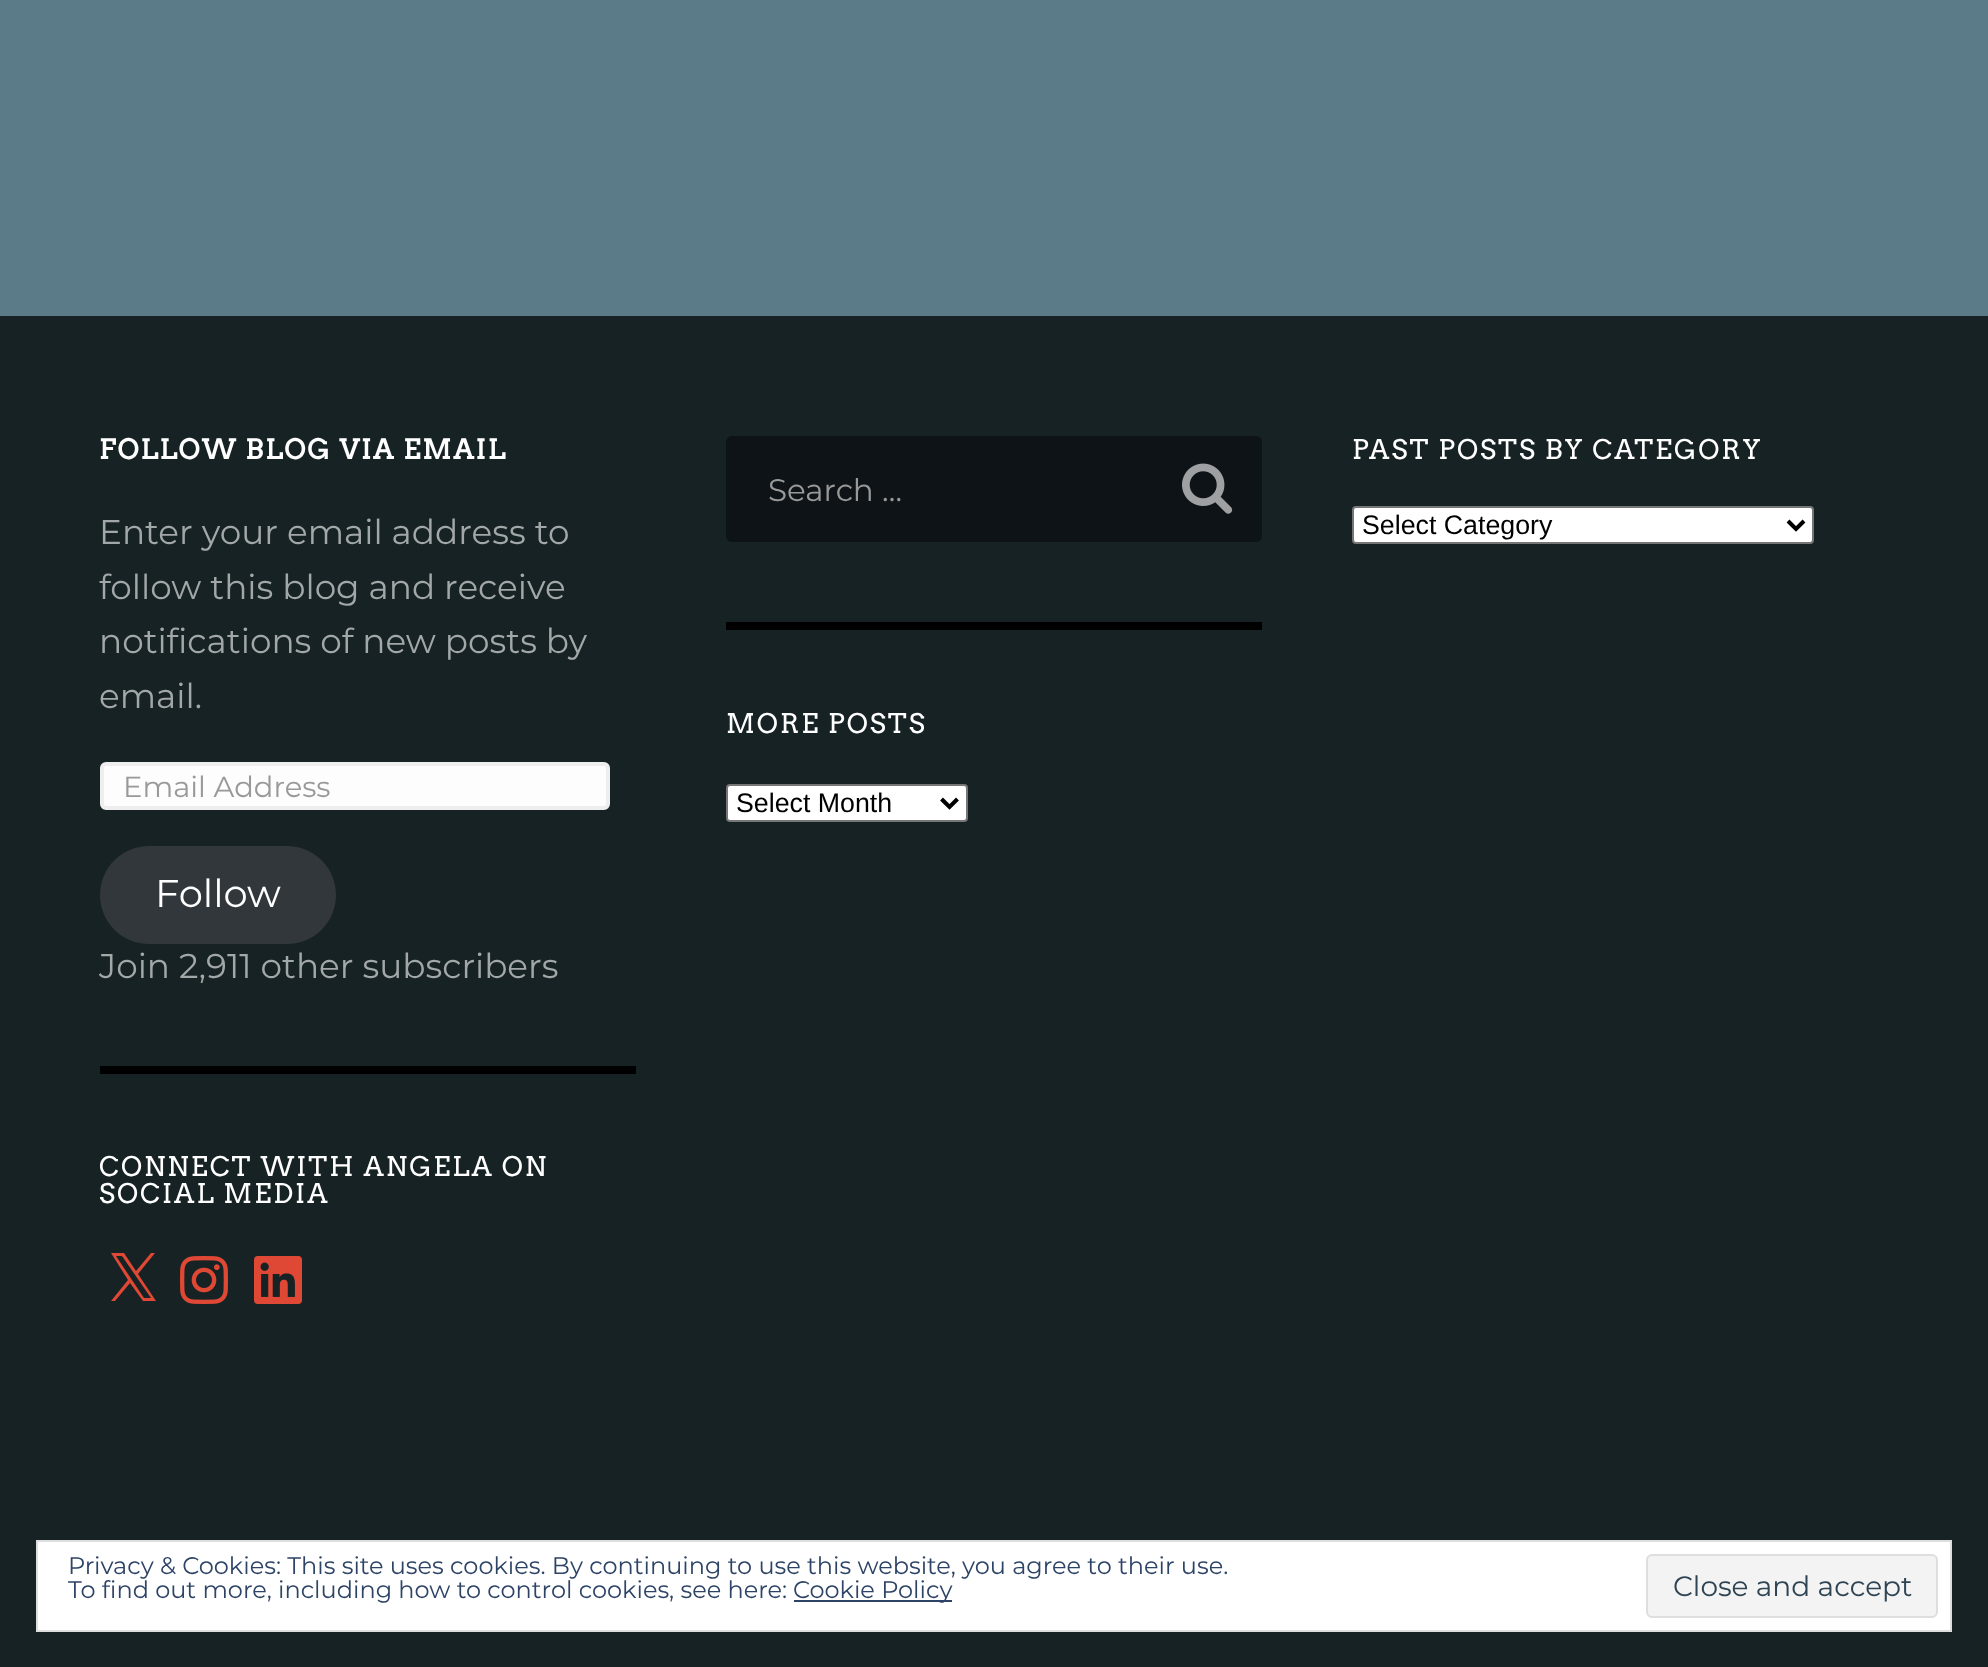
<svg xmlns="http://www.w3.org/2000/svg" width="1988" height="1667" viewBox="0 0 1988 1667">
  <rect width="100%" height="100%" fill="#5b7b89"/>
  <path d="M0 316h1988v1351H0z" fill="#172225"/>
  <rect x="102" y="764" width="506" height="44" rx="4" fill="#fdfdfd" stroke="#eee" stroke-width="4"/>
  <rect x="100" y="846" width="236" height="98" rx="49" fill="#32373c"/>
  <path d="M100 1066h536v8H100z" fill="#000"/>
  <path d="M138 1274L155 1253H151L136 1271L124 1253H111L128 1280L111 1301H115L130 1283L143 1301H156ZM132 1280L116 1256H122L151 1298H144Z" fill="#df4834"/>
  <image x="180" y="1256" width="48" height="48" href="img/1.png"/>
  <image x="254" y="1256" width="48" height="48" href="img/2.png"/>
  <rect x="726" y="436" width="536" height="106" rx="6" fill="#0d1316"/>
  <image x="1182" y="463" width="51" height="51" href="img/3.png"/>
  <path d="M726 622h536v8H726z" fill="#000"/>
  <rect x="727" y="785" width="240" height="36" rx="3" fill="#fff" stroke="#767676" stroke-width="2"/>
  <path d="M941.5 799L949.5 807L957.5 799" fill="none" stroke="#000" stroke-width="4"/>
  <rect x="1353" y="507" width="460" height="36" rx="3" fill="#fff" stroke="#767676" stroke-width="2"/>
  <path d="M1788 521L1796 529L1804 521" fill="none" stroke="#000" stroke-width="4"/>
  <path d="M37 1541h1914v90H37z" fill="#fff" stroke="#dedede" stroke-width="2"/>
  <path d="M794 1600h158v2H794z" fill="#2e4467"/>
  <rect x="1647" y="1555" width="290" height="62" rx="5" fill="#f3f3f3" stroke="#dedede" stroke-width="2"/>
  <text x="99" y="459" font-family="Arvo" font-size="27" font-weight="bold" letter-spacing="2" fill="#fff">FOLLOW BLOG VIA EMAIL</text>
  <g font-family="Montserrat" font-size="34.25" fill="#a2a7a8">
    <text x="99" y="544">Enter your email address to</text>
    <text x="99" y="599">follow this blog and receive</text>
    <text x="99" y="653">notifications of new posts by</text>
    <text x="99" y="708">email.</text>
  </g>
  <text x="123" y="797" font-family="Montserrat" font-size="29" fill="#999">Email Address</text>
  <text x="155" y="907" font-family="Montserrat" font-size="38.5" fill="#fff">Follow</text>
  <text x="99" y="978" font-family="Montserrat" font-size="34.25" fill="#a2a7a8">Join 2,911 other subscribers</text>
  <g font-family="Arvo" font-size="27" letter-spacing="2" fill="#fff">
    <text x="99" y="1176">CONNECT WITH ANGELA ON</text>
    <text x="99" y="1203">SOCIAL MEDIA</text>
  </g>
  <text x="768" y="501" font-family="Montserrat" font-size="31" fill="#999">Search …</text>
  <text x="726" y="733" font-family="Arvo" font-size="27" letter-spacing="2" fill="#fff">MORE POSTS</text>
  <text x="736" y="812" font-family="Liberation Sans" font-size="26.75" fill="#000">Select Month</text>
  <text x="1352" y="459" font-family="Arvo" font-size="27" letter-spacing="2" fill="#fff">PAST POSTS BY CATEGORY</text>
  <text x="1362" y="534" font-family="Liberation Sans" font-size="26.75" fill="#000">Select Category</text>
  <g font-family="Montserrat" font-size="24" fill="#2e4467">
    <text x="68" y="1574">Privacy &amp; Cookies: This site uses cookies. By continuing to use this website, you agree to their use.</text>
    <text x="68" y="1598">To find out more, including how to control cookies, see here:</text>
    <text x="793" y="1598">Cookie Policy</text>
  </g>
  <text x="1673" y="1596" font-family="Montserrat" font-size="28" fill="#2e4453">Close and accept</text>
</svg>
